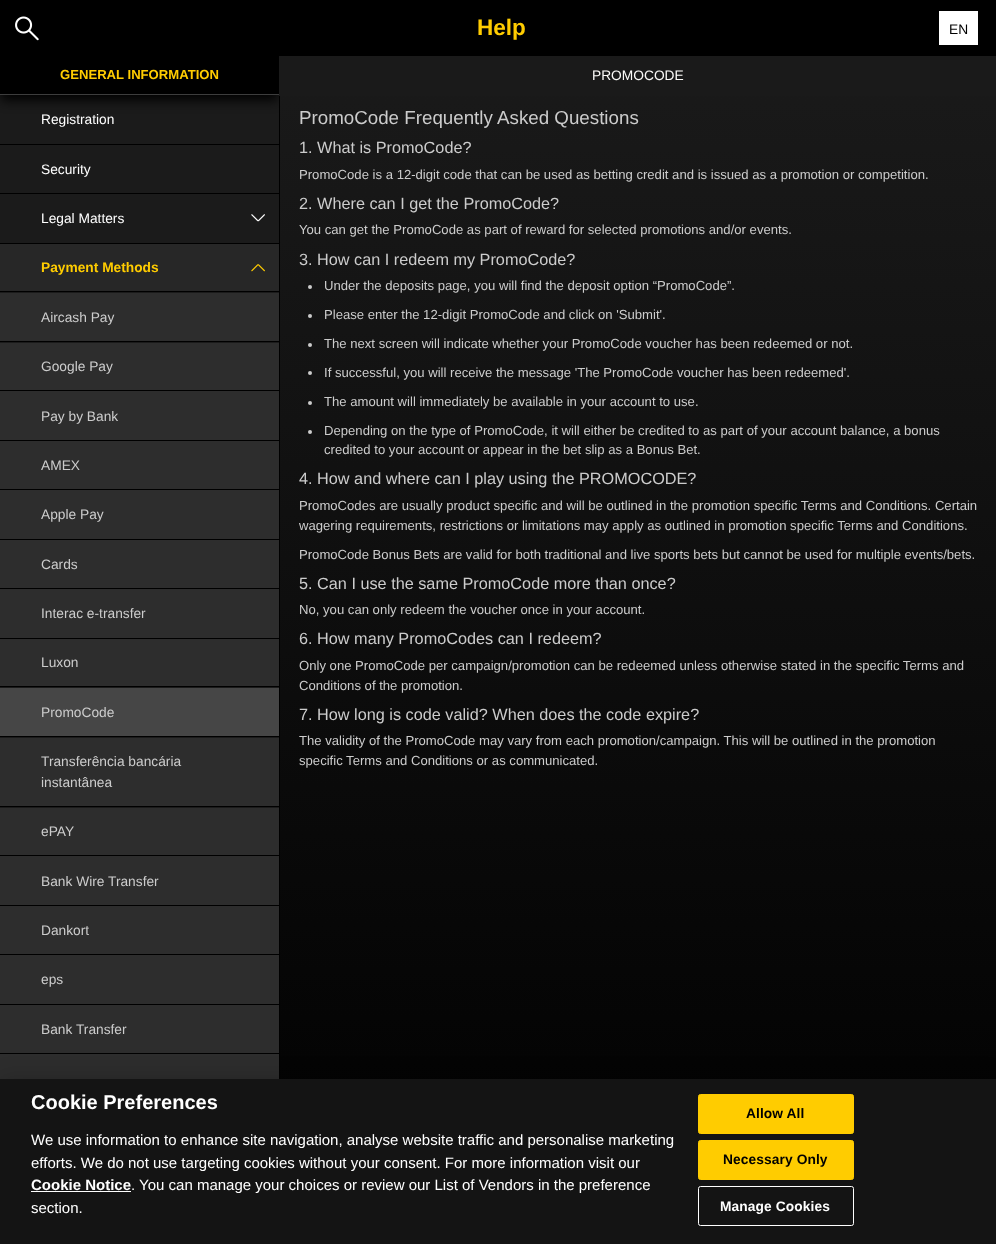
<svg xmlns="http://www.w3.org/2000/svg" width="996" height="1244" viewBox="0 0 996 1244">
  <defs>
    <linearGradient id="g1" gradientUnits="userSpaceOnUse" x1="638" y1="56" x2="638" y2="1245"><stop offset="0" stop-color="#1a1a1a"/><stop offset="1" stop-color="#000"/></linearGradient>
    <clipPath id="clip1"><path d="M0 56h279v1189H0z"/></clipPath>
  </defs>
  <rect width="100%" height="100%" fill="#fff"/>
  <path d="M0 95h279v713H0z" fill="#1b1b1b"/>
  <path d="M280 96h716v983H280z" fill="url(#g1)"/>
  <path d="M279 96h1v983H279z" fill="#000"/>
  <g clip-path="url(#clip1)">
    <path d="M1 64h277v36H1z" fill="#000" filter="blur(6px)"/>
  </g>
  <path d="M0 0h996v56H0z" fill="#000"/>
  <image x="15" y="16" width="24" height="25" href="img/1.png"/>
  <path d="M939 11h39v34H939z" fill="#fff"/>
  <path d="M0 56h279v38H0z" fill="#000"/>
  <path d="M0 94h279v1H0z" fill="#3d3d3d"/>
  <path d="M0 144h279v1H0z" fill="#000"/>
  <path d="M0 193h279v1H0z" fill="#000"/>
  <path d="M0 243h279v1H0z" fill="#000"/>
  <image x="251" y="214" width="14" height="8" href="img/2.png"/>
  <path d="M0 244h279v47H0z" fill="#272727"/>
  <image x="251" y="264" width="14" height="8" href="img/3.png"/>
  <path d="M0 291h279v1H0z" fill="#000"/>
  <path d="M0 341h279v1H0z" fill="#000"/>
  <path d="M0 293h279v48H0z" fill="#2d2d2d"/>
  <path d="M0 390h279v1H0z" fill="#000"/>
  <path d="M0 343h279v47H0z" fill="#2d2d2d"/>
  <path d="M0 440h279v1H0z" fill="#000"/>
  <path d="M0 391h279v49H0z" fill="#2d2d2d"/>
  <path d="M0 489h279v1H0z" fill="#000"/>
  <path d="M0 441h279v48H0z" fill="#2d2d2d"/>
  <path d="M0 539h279v1H0z" fill="#000"/>
  <path d="M0 490h279v49H0z" fill="#2d2d2d"/>
  <path d="M0 588h279v1H0z" fill="#000"/>
  <path d="M0 540h279v48H0z" fill="#2d2d2d"/>
  <path d="M0 638h279v1H0z" fill="#000"/>
  <path d="M0 589h279v49H0z" fill="#2d2d2d"/>
  <path d="M0 686h279v1H0z" fill="#000"/>
  <path d="M0 639h279v47H0z" fill="#2d2d2d"/>
  <path d="M0 736h279v1H0z" fill="#000"/>
  <path d="M0 688h279v48H0z" fill="#464646"/>
  <path d="M0 806h279v1H0z" fill="#000"/>
  <path d="M0 738h279v68H0z" fill="#2d2d2d"/>
  <path d="M0 855h279v1H0z" fill="#000"/>
  <path d="M0 808h279v47H0z" fill="#2d2d2d"/>
  <path d="M0 905h279v1H0z" fill="#000"/>
  <path d="M0 856h279v49H0z" fill="#2d2d2d"/>
  <path d="M0 954h279v1H0z" fill="#000"/>
  <path d="M0 906h279v48H0z" fill="#2d2d2d"/>
  <path d="M0 1004h279v1H0z" fill="#000"/>
  <path d="M0 955h279v49H0z" fill="#2d2d2d"/>
  <path d="M0 1053h279v1H0z" fill="#000"/>
  <path d="M0 1005h279v48H0z" fill="#2d2d2d"/>
  <path d="M0 1054h279v25H0z" fill="#2d2d2d"/>
  <path d="M279 56h717v40H279z" fill="#1a1a1a"/>
  <circle cx="310" cy="287" r="2" fill="#ccc"/>
  <circle cx="310" cy="316" r="2" fill="#ccc"/>
  <circle cx="310" cy="345" r="2" fill="#ccc"/>
  <circle cx="310" cy="373" r="2" fill="#ccc"/>
  <circle cx="310" cy="403" r="2" fill="#ccc"/>
  <circle cx="310" cy="432" r="2" fill="#ccc"/>
  <path d="M0 1079h996v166H0z" fill="#00000033" filter="blur(11px)"/>
  <path d="M0 1079h996v165H0z" fill="#141414"/>
  <path d="M31 1191h100v1H31z" fill="#fff"/>
  <rect x="698.5" y="1094.5" width="155" height="39" rx="2" fill="#fc0" stroke="#fc0"/>
  <rect x="698.5" y="1140.5" width="155" height="39" rx="2" fill="#fc0" stroke="#fc0"/>
  <rect x="698.5" y="1186.5" width="155" height="39" rx="2" fill="none" stroke="#fff"/>
  <text x="477" y="35" font-family="Liberation Sans" font-size="22.5" font-weight="bold" fill="#fc0">Help</text>
  <text x="949" y="34" font-family="Liberation Sans" font-size="13.75" fill="#000">EN</text>
  <text x="60" y="79" font-family="Liberation Sans" font-size="13.12" font-weight="bold" fill="#fc0">GENERAL INFORMATION</text>
  <g font-family="Liberation Sans" font-size="13.75" fill="#fff">
    <text x="41" y="124">Registration</text>
    <text x="41" y="174">Security</text>
    <text x="41" y="223">Legal Matters</text>
  </g>
  <text x="41" y="272" font-family="Liberation Sans" font-size="13.75" font-weight="bold" fill="#fc0">Payment Methods</text>
  <g font-family="Liberation Sans" font-size="13.75" fill="#ccc">
    <text x="41" y="322">Aircash Pay</text>
    <text x="41" y="371">Google Pay</text>
    <text x="41" y="421">Pay by Bank</text>
    <text x="41" y="470">AMEX</text>
    <text x="41" y="519">Apple Pay</text>
    <text x="41" y="569">Cards</text>
    <text x="41" y="618">Interac e-transfer</text>
    <text x="41" y="667">Luxon</text>
    <text x="41" y="717">PromoCode</text>
    <text x="41" y="766">Transferência bancária</text>
    <text x="41" y="787">instantânea</text>
    <text x="41" y="836">ePAY</text>
    <text x="41" y="886">Bank Wire Transfer</text>
    <text x="41" y="935">Dankort</text>
    <text x="41" y="984">eps</text>
    <text x="41" y="1034">Bank Transfer</text>
  </g>
  <text x="592" y="80" font-family="Liberation Sans" font-size="13.75" fill="#fbfaf8">PROMOCODE</text>
  <text x="299" y="124" font-family="Liberation Sans" font-size="18.75" fill="#ccc">PromoCode Frequently Asked Questions</text>
  <text x="299" y="153" font-family="Liberation Sans" font-size="16.25" fill="#ccc">1. What is PromoCode?</text>
  <text x="299" y="179" font-family="Liberation Sans" font-size="13.12" fill="#ccc">PromoCode is a 12-digit code that can be used as betting credit and is issued as a promotion or competition.</text>
  <text x="299" y="209" font-family="Liberation Sans" font-size="16.25" fill="#ccc">2. Where can I get the PromoCode?</text>
  <text x="299" y="234" font-family="Liberation Sans" font-size="13.12" fill="#ccc">You can get the PromoCode as part of reward for selected promotions and/or events.</text>
  <text x="299" y="265" font-family="Liberation Sans" font-size="16.25" fill="#ccc">3. How can I redeem my PromoCode?</text>
  <g font-family="Liberation Sans" font-size="13.12" fill="#ccc">
    <text x="324" y="290">Under the deposits page, you will find the deposit option “PromoCode”.</text>
    <text x="324" y="319">Please enter the 12-digit PromoCode and click on 'Submit'.</text>
    <text x="324" y="348">The next screen will indicate whether your PromoCode voucher has been redeemed or not.</text>
    <text x="324" y="377">If successful, you will receive the message 'The PromoCode voucher has been redeemed'.</text>
    <text x="324" y="406">The amount will immediately be available in your account to use.</text>
    <text x="324" y="435">Depending on the type of PromoCode, it will either be credited to as part of your account balance, a bonus</text>
    <text x="324" y="454">credited to your account or appear in the bet slip as a Bonus Bet.</text>
  </g>
  <text x="299" y="484" font-family="Liberation Sans" font-size="16.25" fill="#ccc">4. How and where can I play using the PROMOCODE?</text>
  <g font-family="Liberation Sans" font-size="13.12" fill="#ccc">
    <text x="299" y="510">PromoCodes are usually product specific and will be outlined in the promotion specific Terms and Conditions. Certain</text>
    <text x="299" y="530">wagering requirements, restrictions or limitations may apply as outlined in promotion specific Terms and Conditions.</text>
    <text x="299" y="559">PromoCode Bonus Bets are valid for both traditional and live sports bets but cannot be used for multiple events/bets.</text>
  </g>
  <text x="299" y="589" font-family="Liberation Sans" font-size="16.25" fill="#ccc">5. Can I use the same PromoCode more than once?</text>
  <text x="299" y="614" font-family="Liberation Sans" font-size="13.12" fill="#ccc">No, you can only redeem the voucher once in your account.</text>
  <text x="299" y="644" font-family="Liberation Sans" font-size="16.25" fill="#ccc">6. How many PromoCodes can I redeem?</text>
  <g font-family="Liberation Sans" font-size="13.12" fill="#ccc">
    <text x="299" y="670">Only one PromoCode per campaign/promotion can be redeemed unless otherwise stated in the specific Terms and</text>
    <text x="299" y="690">Conditions of the promotion.</text>
  </g>
  <text x="299" y="720" font-family="Liberation Sans" font-size="16.25" fill="#ccc">7. How long is code valid? When does the code expire?</text>
  <g font-family="Liberation Sans" font-size="13.12" fill="#ccc">
    <text x="299" y="745">The validity of the PromoCode may vary from each promotion/campaign. This will be outlined in the promotion</text>
    <text x="299" y="765">specific Terms and Conditions or as communicated.</text>
  </g>
  <text x="31" y="1109" font-family="Liberation Sans" font-size="20" font-weight="bold" fill="#fff">Cookie Preferences</text>
  <g font-family="Liberation Sans" font-size="15" fill="#fff">
    <text x="31" y="1145">We use information to enhance site navigation, analyse website traffic and personalise marketing</text>
    <text x="31" y="1168">efforts. We do not use targeting cookies without your consent. For more information visit our</text>
  </g>
  <text x="31" y="1190" font-family="Liberation Sans" font-size="15" font-weight="bold" fill="#fff">Cookie Notice</text>
  <g font-family="Liberation Sans" font-size="15" fill="#fff">
    <text x="131" y="1190">. You can manage your choices or review our List of Vendors in the preference</text>
    <text x="31" y="1213">section.</text>
  </g>
  <g font-family="Liberation Sans" font-size="13.75" font-weight="bold" letter-spacing="0.1" fill="#000">
    <text x="746" y="1118">Allow All</text>
    <text x="723" y="1164">Necessary Only</text>
  </g>
  <text x="720" y="1211" font-family="Liberation Sans" font-size="13.75" font-weight="bold" letter-spacing="0.1" fill="#fff">Manage Cookies</text>
</svg>
